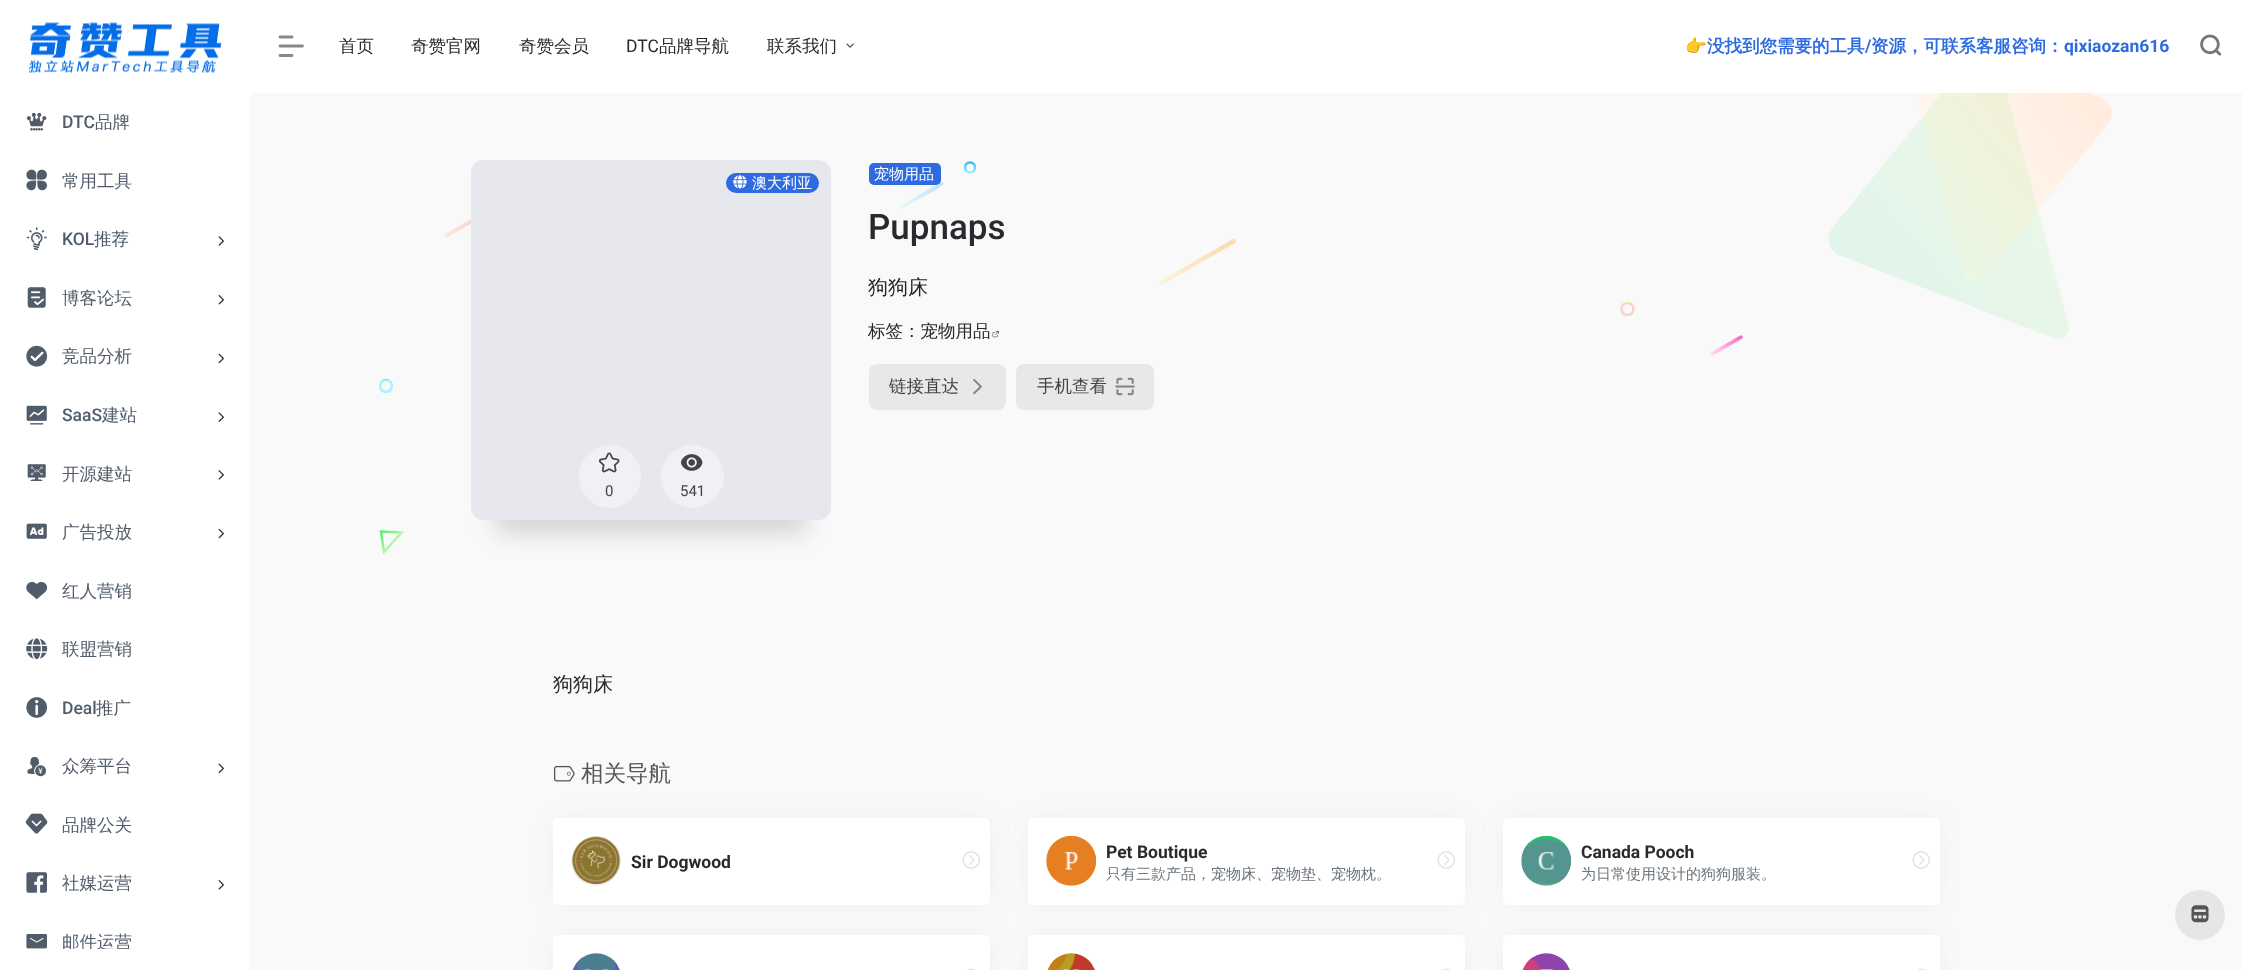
<svg xmlns="http://www.w3.org/2000/svg" width="2242" height="970" viewBox="0 0 2242 970">
  <defs>
    <linearGradient id="g1" gradientUnits="userSpaceOnUse" x1="2058" y1="26" x2="1874" y2="161"><stop offset="0" stop-color="#ffebdd"/><stop offset="1" stop-color="#fffbf4"/></linearGradient>
    <linearGradient id="g2" gradientUnits="userSpaceOnUse" x1="1996" y1="45" x2="1795" y2="215"><stop offset="0" stop-color="#95f469" stop-opacity="0.11"/><stop offset="1" stop-color="#15d06e" stop-opacity="0.11"/></linearGradient>
    <clipPath id="clip1"><path d="M964 161h12v13H964z"/></clipPath>
    <linearGradient id="g3" gradientUnits="userSpaceOnUse" x1="970" y1="163" x2="970" y2="173"><stop offset="0" stop-color="#38beff"/><stop offset="1" stop-color="#a5f0ff"/></linearGradient>
    <linearGradient id="g4" gradientUnits="userSpaceOnUse" x1="900" y1="208" x2="943" y2="183"><stop offset="0" stop-color="#ebf6fa"/><stop offset="1" stop-color="#bee2fa"/></linearGradient>
    <linearGradient id="g5" gradientUnits="userSpaceOnUse" x1="445" y1="237" x2="488" y2="212"><stop offset="0" stop-color="#fbe9d8"/><stop offset="1" stop-color="#fbcacc"/></linearGradient>
    <linearGradient id="g6" gradientUnits="userSpaceOnUse" x1="1160" y1="284" x2="1235" y2="240"><stop offset="0" stop-color="#fbf4dc"/><stop offset="1" stop-color="#fbd8b1"/></linearGradient>
    <clipPath id="clip2"><path d="M1620 301h15v15H1620z"/></clipPath>
    <linearGradient id="g7" gradientUnits="userSpaceOnUse" x1="1628" y1="303" x2="1628" y2="315"><stop offset="0" stop-color="#fce8a0"/><stop offset="0" stop-color="#f8d3ca"/></linearGradient>
    <clipPath id="clip3"><path d="M379 379h15v15H379z"/></clipPath>
    <linearGradient id="g8" gradientUnits="userSpaceOnUse" x1="386" y1="380" x2="386" y2="393"><stop offset="0" stop-color="#7bfd81"/><stop offset="0" stop-color="#a4f3fd"/></linearGradient>
    <linearGradient id="g9" gradientUnits="userSpaceOnUse" x1="381" y1="531" x2="399" y2="548"><stop offset="0" stop-color="#55ee71"/><stop offset="1" stop-color="#dbfdc4"/></linearGradient>
    <clipPath id="clip4"><path d="M10 914h230v35H10z"/></clipPath>
  </defs>
  <rect width="100%" height="100%" fill="#f9f9f9"/>
  <path d="M1963 272L1902 42C1898 29 1906 22 1918 27L2099 97C2112 102 2116 115 2107 125L1985 276C1977 287 1967 285 1963 272Z" fill="url(#g1)" fill-rule="evenodd"/>
  <path d="M1997 57L2068 322C2071 335 2064 342 2051 337L1841 256C1828 251 1825 238 1833 227L1975 52C1983 42 1993 44 1997 57Z" fill="url(#g2)" fill-rule="evenodd"/>
  <path d="M0 0h2242v93H0z" fill="#fff"/>
  <image x="28" y="22" width="194" height="51" href="img/1.png"/>
  <path d="M0 93h250v877H0z" fill="#fff"/>
  <image x="26" y="112" width="21" height="19" href="img/2.png"/>
  <image x="26" y="169" width="21" height="22" href="img/3.png"/>
  <image x="26" y="227" width="21" height="24" href="img/4.png"/>
  <image x="218" y="236" width="6" height="10" href="img/5.png"/>
  <image x="27" y="287" width="19" height="21" href="img/6.png"/>
  <image x="218" y="295" width="6" height="10" href="img/7.png"/>
  <image x="26" y="345" width="22" height="22" href="img/8.png"/>
  <image x="218" y="353" width="6" height="11" href="img/9.png"/>
  <image x="26" y="405" width="21" height="20" href="img/10.png"/>
  <image x="218" y="412" width="6" height="10" href="img/11.png"/>
  <image x="27" y="464" width="19" height="17" href="img/12.png"/>
  <image x="218" y="470" width="6" height="10" href="img/13.png"/>
  <image x="26" y="523" width="21" height="16" href="img/14.png"/>
  <image x="218" y="528" width="6" height="11" href="img/15.png"/>
  <image x="26" y="581" width="22" height="19" href="img/16.png"/>
  <image x="26" y="638" width="22" height="22" href="img/17.png"/>
  <image x="26" y="697" width="21" height="21" href="img/18.png"/>
  <image x="27" y="756" width="19" height="21" href="img/19.png"/>
  <image x="218" y="763" width="6" height="11" href="img/20.png"/>
  <image x="25" y="813" width="23" height="21" href="img/21.png"/>
  <image x="26" y="872" width="21" height="21" href="img/22.png"/>
  <image x="218" y="880" width="6" height="10" href="img/23.png"/>
  <image x="26" y="934" width="21" height="15" href="img/24.png"/>
  <path d="M280 37H292M280 46H302.5M280 55.5H292" fill="none" stroke="#888" stroke-width="2.8" stroke-linecap="round" stroke-linejoin="round"/>
  <image x="846" y="43" width="8" height="5" href="img/25.png"/>
  <image x="2200" y="34" width="22" height="22" href="img/26.png"/>
  <g clip-path="url(#clip1)">
    <circle cx="970" cy="167.5" r="5" fill="none" stroke="url(#g3)" stroke-width="2.5"/>
  </g>
  <path d="M900 206L941 182L943 183C945 185 939 187 936 190L901 209C899 209 899 207 900 206Z" fill="url(#g4)" fill-rule="evenodd"/>
  <path d="M445 234L486 211L488 212C490 214 484 216 481 218L446 238C444 238 444 235 445 234Z" fill="url(#g5)" fill-rule="evenodd"/>
  <path d="M1160 281L1233 239C1234 239 1236 240 1236 241L1235 243L1162 285C1160 285 1158 282 1160 281Z" fill="url(#g6)" fill-rule="evenodd"/>
  <g clip-path="url(#clip2)">
    <circle cx="1627.5" cy="309" r="6" fill="none" stroke="url(#g7)" stroke-width="2.5"/>
  </g>
  <image x="1710" y="335" width="33" height="21" href="img/27.png"/>
  <g clip-path="url(#clip3)">
    <circle cx="386" cy="386" r="6" fill="none" stroke="url(#g8)" stroke-width="2.5"/>
  </g>
  <path d="M401.5 532.5L381 531.5L384 552Z" fill="none" stroke="url(#g9)" stroke-width="2.5"/>
  <path d="M496 223h310v310H496z" fill="#00000026" filter="blur(12.5px)"/>
  <rect x="471" y="160" width="360" height="360" rx="13" fill="#e6e8ed"/>
  <rect x="726" y="173" width="93" height="20" rx="10" fill="#2f6be0"/>
  <image x="733" y="175" width="14" height="14" href="img/28.png"/>
  <rect x="579" y="445" width="62" height="63" rx="31" fill="#f0f1f4"/>
  <image x="598" y="452" width="22" height="21" href="img/29.png"/>
  <circle cx="692.5" cy="476.5" r="31.5" fill="#f0f1f4"/>
  <image x="681" y="454" width="22" height="17" href="img/30.png"/>
  <rect x="869" y="163" width="72" height="22" rx="5" fill="#2f6be0"/>
  <image x="992" y="331" width="7" height="7" href="img/31.png"/>
  <rect x="869" y="364" width="137" height="46" rx="8" fill="#e8e8e8"/>
  <image x="973" y="379" width="9" height="16" href="img/32.png"/>
  <rect x="1016" y="364" width="138" height="46" rx="8" fill="#e8e8e8"/>
  <image x="1115" y="377" width="20" height="19" href="img/33.png"/>
  <image x="554" y="765" width="21" height="17" href="img/34.png"/>
  <path d="M559 824h425v75H559z" fill="#9e9e9e33" filter="blur(12.5px)"/>
  <rect x="553" y="818" width="437" height="87" rx="5" fill="#fff"/>
  <circle cx="596" cy="861" r="25" fill="#f2f2f2"/>
  <image x="572" y="836" width="49" height="49" href="img/35.png"/>
  <image x="962" y="851" width="18" height="18" href="img/36.png"/>
  <path d="M1034 824h425v75H1034z" fill="#9e9e9e33" filter="blur(12.5px)"/>
  <rect x="1028" y="818" width="437" height="87" rx="5" fill="#fff"/>
  <circle cx="1071" cy="861" r="25" fill="#f2f2f2"/>
  <image x="1046" y="835" width="51" height="51" href="img/37.png"/>
  <image x="1437" y="851" width="18" height="18" href="img/36.png"/>
  <path d="M1509 824h425v75H1509z" fill="#9e9e9e33" filter="blur(12.5px)"/>
  <rect x="1503" y="818" width="437" height="87" rx="5" fill="#fff"/>
  <circle cx="1546" cy="861" r="25" fill="#f2f2f2"/>
  <image x="1521" y="835" width="51" height="51" href="img/38.png"/>
  <image x="1912" y="851" width="18" height="18" href="img/36.png"/>
  <path d="M559 941h425v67H559z" fill="#9e9e9e33" filter="blur(12.5px)"/>
  <rect x="553" y="935" width="437" height="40" rx="5" fill="#fff"/>
  <image x="572" y="953" width="48" height="17" href="img/39.png"/>
  <image x="967" y="968" width="9" height="2" href="img/40.png"/>
  <path d="M1034 941h425v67H1034z" fill="#9e9e9e33" filter="blur(12.5px)"/>
  <rect x="1028" y="935" width="437" height="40" rx="5" fill="#fff"/>
  <image x="1047" y="953" width="48" height="17" href="img/41.png"/>
  <image x="1442" y="968" width="9" height="2" href="img/40.png"/>
  <path d="M1509 941h425v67H1509z" fill="#9e9e9e33" filter="blur(12.5px)"/>
  <rect x="1503" y="935" width="437" height="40" rx="5" fill="#fff"/>
  <image x="1522" y="953" width="48" height="17" href="img/42.png"/>
  <image x="1917" y="968" width="9" height="2" href="img/40.png"/>
  <circle cx="2200" cy="915" r="25" fill="#e6e6e6"/>
  <image x="2191" y="905" width="18" height="18" href="img/43.png"/>
  <text x="62" y="128" font-family="Roboto" font-size="17.5" font-weight="500" fill="#515c6b">DTC</text>
  <g font-family="WenQuanYi Zen Hei" font-size="17.5" font-weight="500" fill="#515c6b">
    <text x="95" y="128">品牌</text>
    <text x="62" y="187">常用工具</text>
  </g>
  <text x="62" y="245" font-family="Roboto" font-size="17.5" font-weight="500" fill="#515c6b">KOL</text>
  <g font-family="WenQuanYi Zen Hei" font-size="17.5" font-weight="500" fill="#515c6b">
    <text x="94" y="245">推荐</text>
    <text x="62" y="304">博客论坛</text>
    <text x="62" y="362">竞品分析</text>
  </g>
  <text x="62" y="421" font-family="Roboto" font-size="17.5" font-weight="500" fill="#515c6b">SaaS</text>
  <g font-family="WenQuanYi Zen Hei" font-size="17.5" font-weight="500" fill="#515c6b">
    <text x="102" y="421">建站</text>
    <text x="62" y="480">开源建站</text>
    <text x="62" y="538">广告投放</text>
    <text x="62" y="597">红人营销</text>
    <text x="62" y="655">联盟营销</text>
  </g>
  <text x="62" y="714" font-family="Roboto" font-size="17.5" font-weight="500" fill="#515c6b">Deal</text>
  <g font-family="WenQuanYi Zen Hei" font-size="17.5" font-weight="500" fill="#515c6b">
    <text x="96" y="714">推广</text>
    <text x="62" y="772">众筹平台</text>
    <text x="62" y="831">品牌公关</text>
    <text x="62" y="889">社媒运营</text>
  </g>
  <g clip-path="url(#clip4)">
    <text x="62" y="948" font-family="WenQuanYi Zen Hei" font-size="17.5" font-weight="500" fill="#515c6b">邮件运营</text>
  </g>
  <g font-family="WenQuanYi Zen Hei" font-size="17.5" font-weight="500" fill="#282a2d">
    <text x="339" y="52">首页</text>
    <text x="411" y="52">奇赞官网</text>
    <text x="519" y="52">奇赞会员</text>
  </g>
  <text x="626" y="52" font-family="Roboto" font-size="17.5" fill="#282a2d">DTC</text>
  <g font-family="WenQuanYi Zen Hei" font-size="17.5" font-weight="500" fill="#282a2d">
    <text x="659" y="52">品牌导航</text>
    <text x="767" y="52">联系我们</text>
  </g>
  <text x="1685" y="52" font-family="Noto Color Emoji" font-size="17.5" font-weight="bold" fill="#2f6be0">👉</text>
  <text x="1707" y="52" font-family="WenQuanYi Zen Hei" font-size="17.5" font-weight="bold" fill="#2f6be0">没找到您需要的工具</text>
  <text x="1865" y="52" font-family="Roboto" font-size="17.5" font-weight="bold" fill="#2f6be0">/</text>
  <text x="1871" y="52" font-family="WenQuanYi Zen Hei" font-size="17.5" font-weight="bold" fill="#2f6be0">资源，可联系客服咨询：</text>
  <text x="2064" y="52" font-family="Roboto" font-size="17.5" font-weight="bold" fill="#2f6be0">qixiaozan616</text>
  <text x="752" y="188" font-family="WenQuanYi Zen Hei" font-size="15" font-weight="500" fill="#fff">澳大利亚</text>
  <g font-family="Roboto" font-size="15" fill="#424446">
    <text x="605" y="496">0</text>
    <text x="680" y="496">541</text>
  </g>
  <text x="874" y="179" font-family="WenQuanYi Zen Hei" font-size="15" font-weight="500" fill="#fff">宠物用品</text>
  <text x="868" y="239" font-family="Roboto" font-size="35" font-weight="500" fill="#282a2d">Pupnaps</text>
  <text x="868" y="294" font-family="WenQuanYi Zen Hei" font-size="20" font-weight="500" fill="#1d232b">狗狗床</text>
  <text x="868" y="337" font-family="WenQuanYi Zen Hei" font-size="17.5" font-weight="500" fill="#282a2d">标签：宠物用品</text>
  <g font-family="WenQuanYi Zen Hei" font-size="17.5" font-weight="500" fill="#424446">
    <text x="889" y="392">链接直达</text>
    <text x="1037" y="392">手机查看</text>
  </g>
  <text x="553" y="691" font-family="WenQuanYi Zen Hei" font-size="20" font-weight="500" fill="#282a2d">狗狗床</text>
  <text x="581" y="781" font-family="WenQuanYi Zen Hei" font-size="22.5" font-weight="500" fill="#555">相关导航</text>
  <g font-family="Roboto" font-size="17.5" font-weight="bold" fill="#282a2d">
    <text x="631" y="868">Sir Dogwood</text>
    <text x="1106" y="858">Pet Boutique</text>
  </g>
  <text x="1106" y="879" font-family="WenQuanYi Zen Hei" font-size="15" font-weight="500" fill="#6c757d">只有三款产品，宠物床、宠物垫、宠物枕。</text>
  <text x="1581" y="858" font-family="Roboto" font-size="17.5" font-weight="bold" fill="#282a2d">Canada Pooch</text>
  <text x="1581" y="879" font-family="WenQuanYi Zen Hei" font-size="15" font-weight="500" fill="#6c757d">为日常使用设计的狗狗服装。</text>
</svg>
